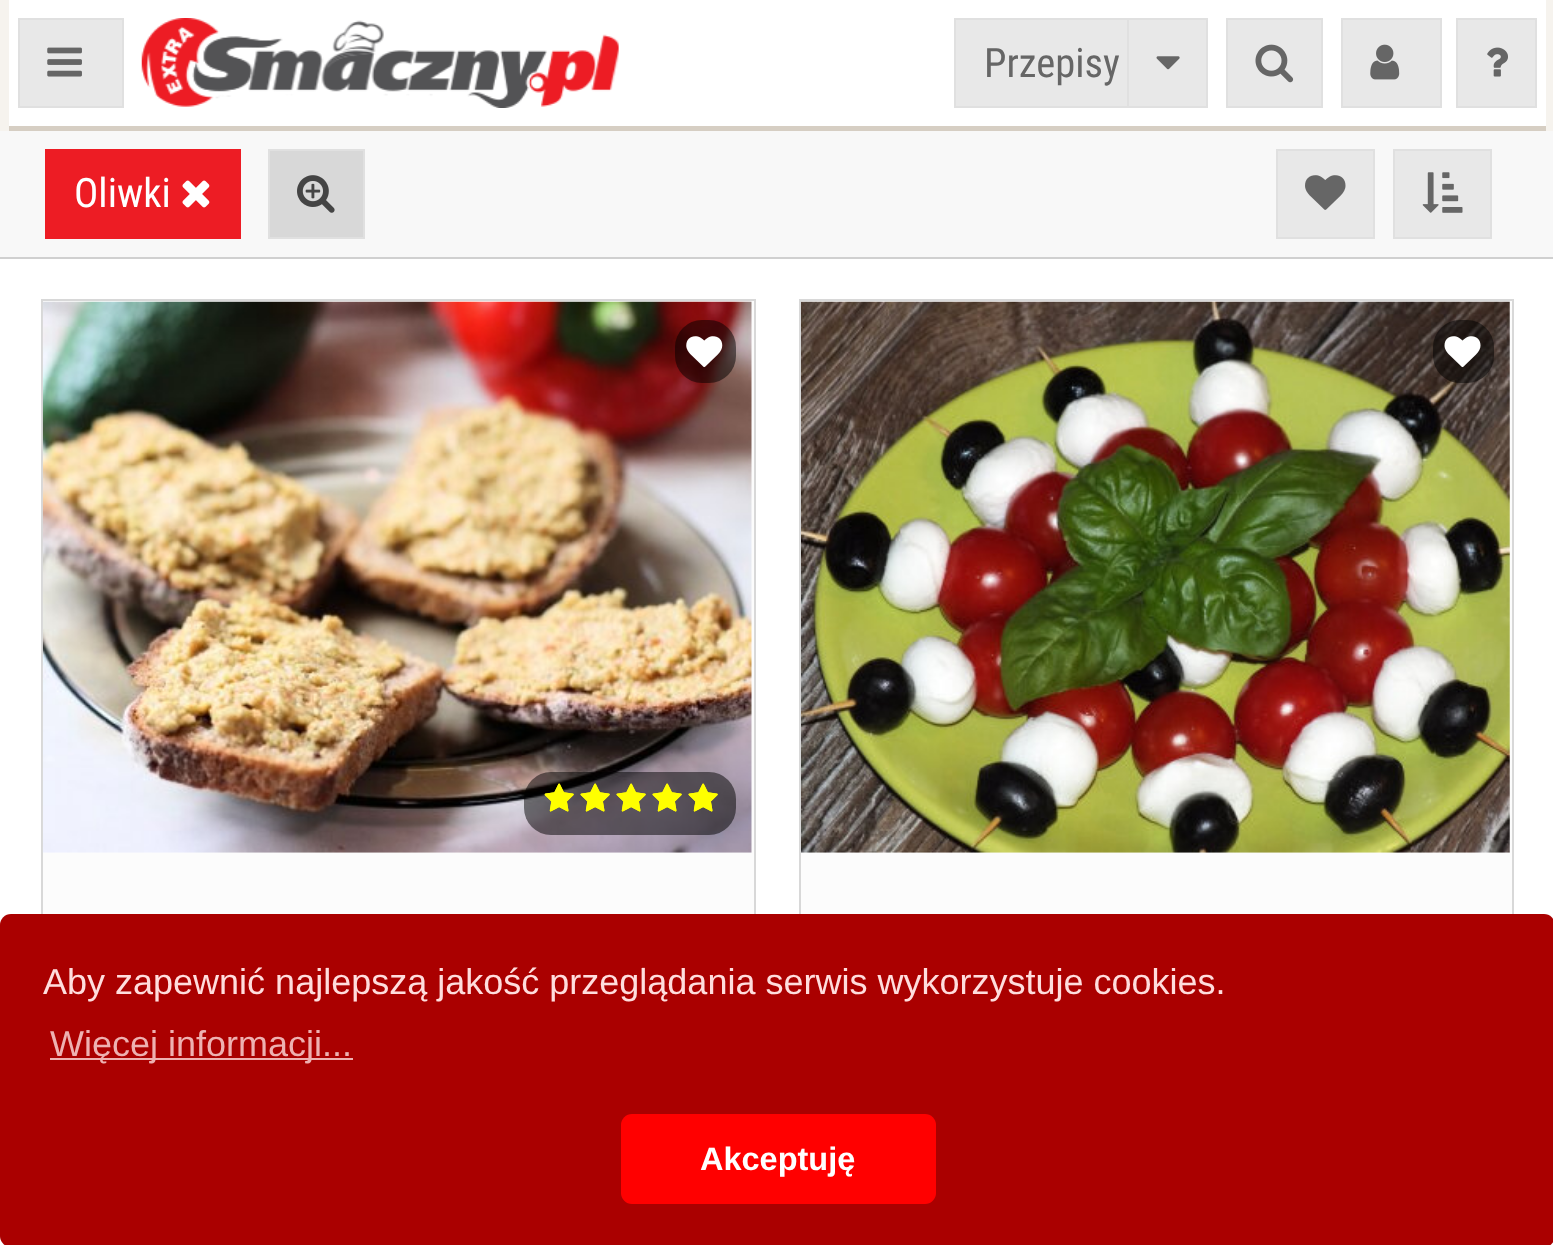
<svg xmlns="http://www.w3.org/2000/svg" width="1553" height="1245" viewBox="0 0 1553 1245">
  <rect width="100%" height="100%" fill="#f6f3ee"/>
  <path d="M9 0h1537v126H9z" fill="#fff"/>
  <path d="M9 126h1537v5H9z" fill="#d6cec3"/>
  <path d="M19 19h104v88H19z" fill="#e8e8e8" stroke="#e0e0e0" stroke-width="2"/>
  <image x="47" y="47" width="35" height="30" href="img/1.png"/>
  <image x="141" y="18" width="478" height="90" href="img/2.png"/>
  <path d="M956 20h171v86H956z" fill="#e8e8e8"/>
  <path d="M955 19h194v88H955z" fill="none" stroke="#e0e0e0" stroke-width="2"/>
  <path d="M1128 19h79v88H1128z" fill="#e8e8e8" stroke="#e0e0e0" stroke-width="2"/>
  <image x="1156" y="56" width="24" height="14" href="img/3.png"/>
  <path d="M1227 19h95v88H1227z" fill="#e8e8e8" stroke="#e0e0e0" stroke-width="2"/>
  <image x="1255" y="44" width="39" height="39" href="img/4.png"/>
  <path d="M1342 19h99v88H1342z" fill="#e8e8e8" stroke="#e0e0e0" stroke-width="2"/>
  <image x="1370" y="44" width="30" height="36" href="img/5.png"/>
  <path d="M1457 19h79v88H1457z" fill="#e8e8e8" stroke="#e0e0e0" stroke-width="2"/>
  <image x="1487" y="47" width="21" height="30" href="img/6.png"/>
  <path d="M0 259h1553v986H0z" fill="#fff"/>
  <path d="M0 131h1553v126H0z" fill="#f8f8f8"/>
  <path d="M0 257h1553v2H0z" fill="#d0d0d0"/>
  <path d="M45 149h196v90H45z" fill="#ed1c24"/>
  <image x="182" y="180" width="28" height="28" href="img/7.png"/>
  <path d="M269 150h95v88H269z" fill="#d8d8d8" stroke="#e0e0e0" stroke-width="2"/>
  <image x="297" y="175" width="38" height="38" href="img/8.png"/>
  <path d="M1277 150h97v88H1277z" fill="#e8e8e8" stroke="#e0e0e0" stroke-width="2"/>
  <image x="1305" y="175" width="41" height="35" href="img/9.png"/>
  <path d="M1394 150h97v88H1394z" fill="#e8e8e8" stroke="#e0e0e0" stroke-width="2"/>
  <image x="1422" y="172" width="41" height="41" href="img/10.png"/>
  <path d="M43 301h711v613H43z" fill="#fcfcfc"/>
  <path d="M42 300h713v939H42z" fill="none" stroke="#d8d8d8" stroke-width="2"/>
  <image x="42" y="301" width="710" height="552" href="img/11.png"/>
  <rect x="675" y="320" width="61" height="63" rx="27" fill="#00000080"/>
  <image x="686" y="336" width="37" height="32" href="img/12.png"/>
  <rect x="524" y="772" width="212" height="63" rx="27" fill="#00000080"/>
  <image x="544" y="783" width="30" height="29" href="img/13.png"/>
  <image x="545" y="783" width="29" height="29" href="img/14.png"/>
  <image x="580" y="783" width="30" height="29" href="img/19.png"/>
  <image x="580" y="783" width="30" height="29" href="img/15.png"/>
  <image x="616" y="783" width="30" height="29" href="img/20.png"/>
  <image x="616" y="783" width="30" height="29" href="img/16.png"/>
  <image x="652" y="783" width="30" height="29" href="img/21.png"/>
  <image x="652" y="783" width="30" height="29" href="img/17.png"/>
  <image x="688" y="783" width="30" height="29" href="img/22.png"/>
  <image x="688" y="783" width="30" height="29" href="img/18.png"/>
  <path d="M801 301h711v613H801z" fill="#fcfcfc"/>
  <path d="M800 300h713v919H800z" fill="none" stroke="#d8d8d8" stroke-width="2"/>
  <image x="801" y="301" width="709" height="552" href="img/23.png"/>
  <rect x="1433" y="320" width="61" height="63" rx="27" fill="#00000080"/>
  <image x="1444" y="336" width="37" height="32" href="img/24.png"/>
  <rect y="914" width="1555" height="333" rx="11" fill="#a00"/>
  <path d="M50 1058h303v2H50z" fill="#eeb1b1"/>
  <rect x="621" y="1114" width="315" height="90" rx="11" fill="#f00"/>
  <text x="984" y="77" font-family="Roboto Condensed" font-size="40.5" fill="#666">Przepisy</text>
  <text x="74" y="207" font-family="Roboto Condensed" font-size="40.5" fill="#fff">Oliwki</text>
  <text x="43" y="994" font-family="Liberation Sans" font-size="36" fill="#fdd">Aby zapewnić najlepszą jakość przeglądania serwis wykorzystuje cookies.</text>
  <text x="50" y="1056" font-family="Liberation Sans" font-size="36" fill="#eeb1b1">Więcej informacji...</text>
  <text x="700" y="1170" font-family="Liberation Sans" font-size="32.5" font-weight="bold" fill="#fff">Akceptuję</text>
</svg>
